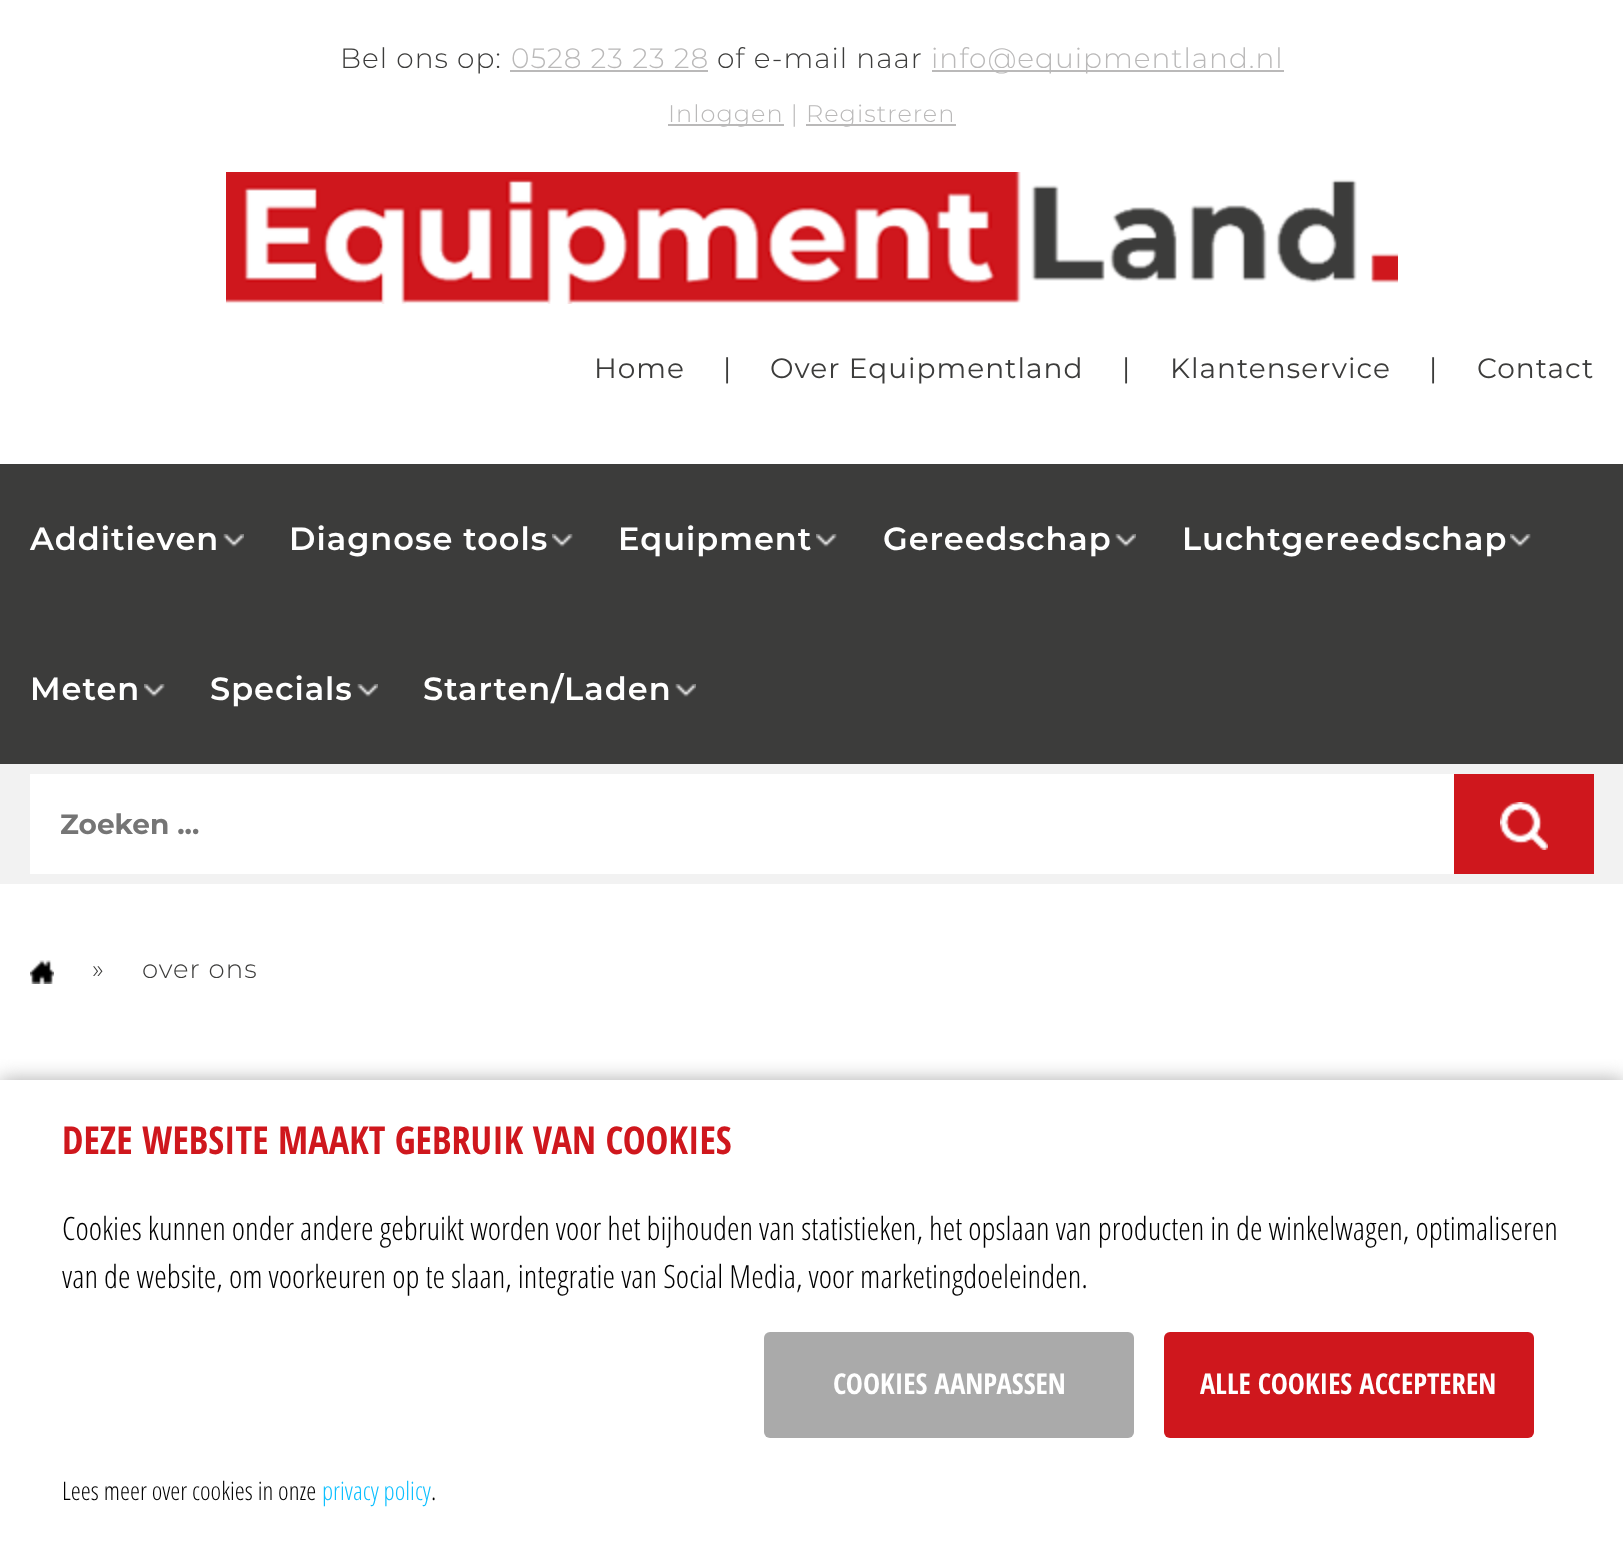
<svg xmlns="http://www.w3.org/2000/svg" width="1623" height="1545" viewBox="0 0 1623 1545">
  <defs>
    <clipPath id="clip1"><path d="M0 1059h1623v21H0z"/></clipPath>
  </defs>
  <rect width="100%" height="100%" fill="#fff"/>
  <path d="M510 70h198v2H510z" fill="#bab9b9"/>
  <path d="M932 70h352v2H932z" fill="#bab9b9"/>
  <path d="M668 124h116v2H668z" fill="#bab9b9"/>
  <path d="M806 124h150v2H806z" fill="#bab9b9"/>
  <image x="226" y="172" width="1172" height="132" href="img/1.png"/>
  <path d="M0 464h1623v300H0z" fill="#3c3c3b"/>
  <image x="223" y="534" width="21" height="13" href="img/2.png"/>
  <image x="552" y="534" width="21" height="13" href="img/3.png"/>
  <image x="816" y="534" width="21" height="13" href="img/3.png"/>
  <image x="1115" y="534" width="21" height="13" href="img/2.png"/>
  <image x="1510" y="534" width="21" height="13" href="img/3.png"/>
  <image x="144" y="684" width="21" height="13" href="img/3.png"/>
  <image x="357" y="684" width="21" height="13" href="img/2.png"/>
  <image x="675" y="684" width="21" height="13" href="img/2.png"/>
  <path d="M0 764h1623v120H0z" fill="#f2f2f2"/>
  <path d="M30 774h1424v100H30z" fill="#fff"/>
  <path d="M1454 774h140v100H1454z" fill="#cf171d"/>
  <image x="1500" y="802" width="48" height="48" href="img/4.png"/>
  <image x="30" y="960" width="24" height="24" href="img/5.png"/>
  <g clip-path="url(#clip1)">
    <path d="M0 1080h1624v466H0z" fill="#aaa" filter="blur(10px)"/>
  </g>
  <rect x="764" y="1332" width="370" height="106" rx="6" fill="#aaa"/>
  <rect x="1164" y="1332" width="370" height="106" rx="6" fill="#cf171d"/>
  <text x="340" y="68" font-family="Montserrat" font-size="28" font-weight="300" letter-spacing="1" fill="#3c3c3b">Bel ons op:</text>
  <text x="511" y="68" font-family="Montserrat" font-size="28" font-weight="300" letter-spacing="1" fill="#bab9b9">0528 23 23 28</text>
  <text x="717" y="68" font-family="Montserrat" font-size="28" font-weight="300" letter-spacing="1" fill="#3c3c3b">of e-mail naar</text>
  <text x="931" y="68" font-family="Montserrat" font-size="28" font-weight="300" letter-spacing="1" fill="#bab9b9">info@equipmentland.nl</text>
  <g font-family="Montserrat" font-size="24" font-weight="300" letter-spacing="1" fill="#bab9b9">
    <text x="668" y="122">Inloggen |</text>
    <text x="806" y="122">Registreren</text>
  </g>
  <g font-family="Montserrat" font-size="28" letter-spacing="1" fill="#3c3c3b">
    <text x="594" y="378">Home</text>
    <text x="723" y="378">|</text>
    <text x="770" y="378">Over Equipmentland</text>
    <text x="1122" y="378">|</text>
    <text x="1170" y="378">Klantenservice</text>
    <text x="1429" y="378">|</text>
    <text x="1477" y="378">Contact</text>
  </g>
  <g font-family="Montserrat" font-size="32" font-weight="600" letter-spacing="1" fill="#fff">
    <text x="30" y="550">Additieven</text>
    <text x="289" y="550">Diagnose tools</text>
    <text x="618" y="550">Equipment</text>
    <text x="883" y="550">Gereedschap</text>
    <text x="1182" y="550">Luchtgereedschap</text>
    <text x="30" y="700">Meten</text>
    <text x="210" y="700">Specials</text>
    <text x="423" y="700">Starten/Laden</text>
  </g>
  <text x="60" y="834" font-family="Montserrat" font-size="28" font-weight="bold" fill="#757575">Zoeken ...</text>
  <g font-family="Montserrat" font-size="26" font-weight="300" letter-spacing="1" fill="#3c3c3b">
    <text x="92" y="978">»</text>
    <text x="142" y="978">over ons</text>
  </g>
  <text x="62" y="1154" font-family="Open Sans Condensed" font-size="38.4" font-weight="bold" fill="#cf171d">DEZE WEBSITE MAAKT GEBRUIK VAN COOKIES</text>
  <g font-family="Open Sans Condensed" font-size="32" font-weight="300" fill="#000">
    <text x="62" y="1240">Cookies kunnen onder andere gebruikt worden voor het bijhouden van statistieken, het opslaan van producten in de winkelwagen, optimaliseren</text>
    <text x="62" y="1288">van de website, om voorkeuren op te slaan, integratie van Social Media, voor marketingdoeleinden.</text>
  </g>
  <g font-family="Open Sans Condensed" font-size="28.75" font-weight="bold" fill="#fff">
    <text x="833" y="1394">COOKIES AANPASSEN</text>
    <text x="1200" y="1394">ALLE COOKIES ACCEPTEREN</text>
  </g>
  <text x="62" y="1500" font-family="Open Sans Condensed" font-size="25.5" font-weight="300" fill="#000">Lees meer over cookies in onze</text>
  <text x="322" y="1500" font-family="Open Sans Condensed" font-size="25.5" font-weight="300" fill="#0bbfff">privacy policy</text>
  <text x="431" y="1500" font-family="Open Sans Condensed" font-size="25.5" font-weight="300" fill="#000">.</text>
</svg>
